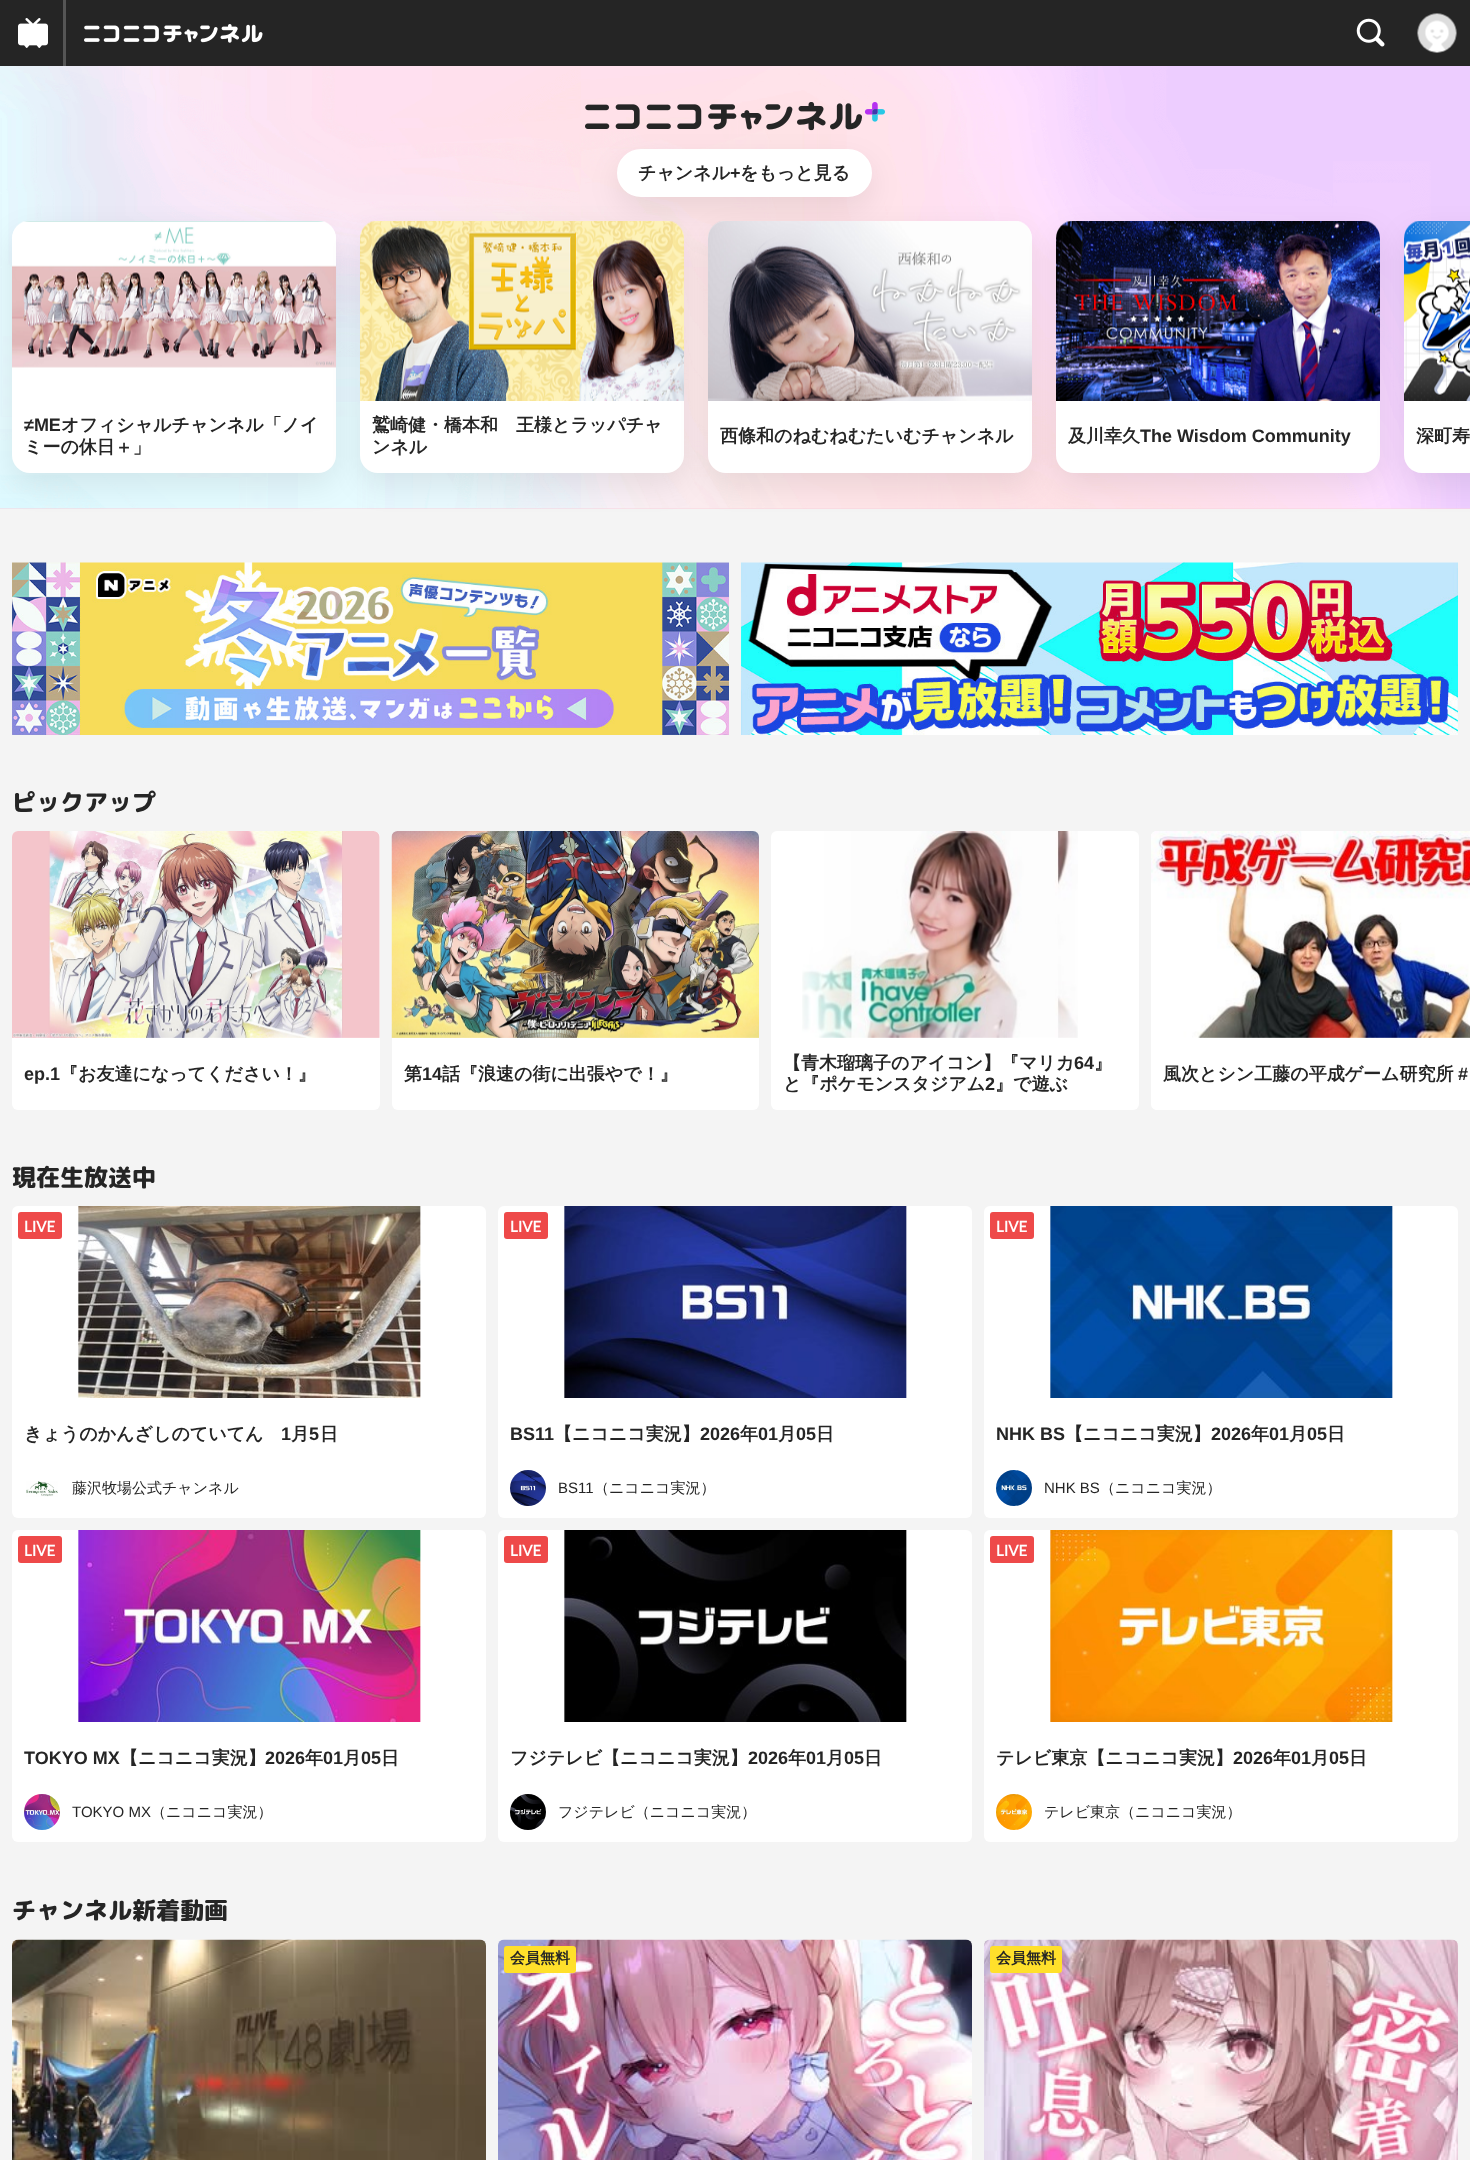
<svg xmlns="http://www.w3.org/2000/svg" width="1470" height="2160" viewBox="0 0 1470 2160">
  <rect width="100%" height="100%" fill="#f4f4f4"/>
  <path d="M0 0h1470v66H0z" fill="#252525"/>
  <image x="18" y="18" width="30" height="30" href="img/1.png"/>
  <path d="M63 0h3v66H63z" fill="#555"/>
  <image x="84" y="24" width="179" height="19" href="img/2.png"/>
  <image x="1356" y="18" width="29" height="29" href="img/3.png"/>
  <image x="1417" y="13" width="40" height="40" href="img/4.png"/>
  <path d="M0 508h1470v1H0z" fill="#f8d2dd"/>
  <image x="0" y="66" width="1470" height="443" href="img/5.png"/>
  <image x="585" y="102" width="300" height="29" href="img/6.png"/>
  <rect x="617" y="161" width="255" height="48" rx="24" fill="#00000014" filter="blur(15px)"/>
  <rect x="618.5" y="150.5" width="252" height="45" rx="22.5" fill="#fff" stroke="#fff" stroke-width="3"/>
  <rect x="12" y="233" width="324" height="252" rx="18" fill="#00000014" filter="blur(15px)"/>
  <rect x="12" y="221" width="324" height="252" rx="18" fill="#fff"/>
  <image x="12" y="221" width="324" height="147" href="img/7.png"/>
  <rect x="360" y="233" width="324" height="252" rx="18" fill="#00000014" filter="blur(15px)"/>
  <rect x="360" y="221" width="324" height="252" rx="18" fill="#fff"/>
  <image x="360" y="221" width="324" height="180" href="img/8.png"/>
  <rect x="708" y="233" width="324" height="252" rx="18" fill="#00000014" filter="blur(15px)"/>
  <rect x="708" y="221" width="324" height="252" rx="18" fill="#fff"/>
  <image x="708" y="221" width="324" height="180" href="img/9.png"/>
  <rect x="1056" y="233" width="324" height="252" rx="18" fill="#00000014" filter="blur(15px)"/>
  <rect x="1056" y="221" width="324" height="252" rx="18" fill="#fff"/>
  <image x="1056" y="221" width="324" height="180" href="img/10.png"/>
  <rect x="1404" y="233" width="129" height="252" rx="18" fill="#00000014" filter="blur(15px)"/>
  <path d="M1422 221H1470V473H1422C1412 473 1404 465 1404 455V239C1404 229 1412 221 1422 221Z" fill="#fff"/>
  <image x="1404" y="221" width="66" height="180" href="img/11.png"/>
  <image x="12" y="562" width="717" height="173" href="img/12.png"/>
  <image x="741" y="562" width="717" height="173" href="img/13.png"/>
  <rect x="12" y="831" width="368" height="279" rx="6" fill="#fff"/>
  <image x="12" y="831" width="368" height="207" href="img/14.png"/>
  <rect x="392" y="831" width="367" height="279" rx="6" fill="#fff"/>
  <image x="391" y="831" width="368" height="207" href="img/15.png"/>
  <rect x="771" y="831" width="368" height="279" rx="6" fill="#fff"/>
  <image x="802" y="831" width="276" height="207" href="img/16.png"/>
  <path d="M1157 831H1470V1110H1157C1153.5 1110 1151 1107.5 1151 1104V837C1151 833.5 1153.5 831 1157 831Z" fill="#fff"/>
  <image x="1151" y="831" width="319" height="207" href="img/17.png"/>
  <rect x="12" y="1206" width="474" height="312" rx="6" fill="#fff"/>
  <rect x="18" y="1212" width="44" height="27" rx="3" fill="#ee4949"/>
  <image x="78" y="1206" width="343" height="192" href="img/18.png"/>
  <image x="26" y="1481" width="32" height="16" href="img/19.png"/>
  <rect x="498" y="1206" width="474" height="312" rx="6" fill="#fff"/>
  <rect x="504" y="1212" width="44" height="27" rx="3" fill="#ee4949"/>
  <image x="564" y="1206" width="343" height="192" href="img/20.png"/>
  <image x="510" y="1470" width="36" height="36" href="img/21.png"/>
  <rect x="984" y="1206" width="474" height="312" rx="6" fill="#fff"/>
  <rect x="990" y="1212" width="44" height="27" rx="3" fill="#ee4949"/>
  <image x="1050" y="1206" width="343" height="192" href="img/22.png"/>
  <image x="996" y="1470" width="36" height="36" href="img/23.png"/>
  <rect x="12" y="1530" width="474" height="312" rx="6" fill="#fff"/>
  <rect x="18" y="1536" width="44" height="27" rx="3" fill="#ee4949"/>
  <image x="78" y="1530" width="343" height="192" href="img/24.png"/>
  <image x="24" y="1794" width="36" height="36" href="img/25.png"/>
  <rect x="498" y="1530" width="474" height="312" rx="6" fill="#fff"/>
  <rect x="504" y="1536" width="44" height="27" rx="3" fill="#ee4949"/>
  <image x="564" y="1530" width="343" height="192" href="img/26.png"/>
  <image x="510" y="1794" width="36" height="36" href="img/27.png"/>
  <rect x="984" y="1530" width="474" height="312" rx="6" fill="#fff"/>
  <rect x="990" y="1536" width="44" height="27" rx="3" fill="#ee4949"/>
  <image x="1050" y="1530" width="343" height="192" href="img/28.png"/>
  <image x="996" y="1794" width="36" height="36" href="img/29.png"/>
  <image x="12" y="1939" width="474" height="221" href="img/30.png"/>
  <image x="498" y="1939" width="474" height="221" href="img/31.png"/>
  <rect x="504" y="1946" width="72" height="27" rx="3" fill="#ffe02b"/>
  <image x="984" y="1939" width="474" height="221" href="img/32.png"/>
  <rect x="990" y="1946" width="72" height="27" rx="3" fill="#ffe02b"/>
  <text x="638" y="179" font-family="WenQuanYi Zen Hei" font-size="18" font-weight="bold" fill="#252525">チャンネル</text>
  <text x="730" y="179" font-family="Liberation Sans" font-size="18" font-weight="bold" fill="#252525">+</text>
  <text x="740" y="179" font-family="WenQuanYi Zen Hei" font-size="18" font-weight="bold" fill="#252525">をもっと見る</text>
  <text x="24" y="431" font-family="Liberation Sans" font-size="18" font-weight="bold" fill="#252525">≠ME</text>
  <g font-family="WenQuanYi Zen Hei" font-size="18" font-weight="bold" fill="#252525">
    <text x="61" y="431">オフィシャルチャンネル「ノイ</text>
    <text x="24" y="453">ミーの休日＋」</text>
    <text x="372" y="431">鷲崎健・橋本和　王様とラッパチャ</text>
    <text x="372" y="453">ンネル</text>
    <text x="720" y="442">西條和のねむねむたいむチャンネル</text>
    <text x="1068" y="442">及川幸久</text>
  </g>
  <text x="1140" y="442" font-family="Liberation Sans" font-size="18" font-weight="bold" fill="#252525">The Wisdom Community</text>
  <text x="1416" y="442" font-family="WenQuanYi Zen Hei" font-size="18" font-weight="bold" fill="#252525">深町寿</text>
  <text x="12" y="811" font-family="'Rounded Mplus 1c'" font-size="24" font-weight="800" fill="#252525">ピックアップ</text>
  <text x="24" y="1080" font-family="Liberation Sans" font-size="18" font-weight="bold" fill="#252525">ep.1</text>
  <g font-family="WenQuanYi Zen Hei" font-size="18" font-weight="bold" fill="#252525">
    <text x="60" y="1080">『お友達になってください！』</text>
    <text x="404" y="1080">第</text>
  </g>
  <text x="422" y="1080" font-family="Liberation Sans" font-size="18" font-weight="bold" fill="#252525">14</text>
  <g font-family="WenQuanYi Zen Hei" font-size="18" font-weight="bold" fill="#252525">
    <text x="442" y="1080">話『浪速の街に出張やで！』</text>
    <text x="783" y="1069">【青木瑠璃子のアイコン】『マリカ</text>
  </g>
  <text x="1074" y="1069" font-family="Liberation Sans" font-size="18" font-weight="bold" fill="#252525">64</text>
  <g font-family="WenQuanYi Zen Hei" font-size="18" font-weight="bold" fill="#252525">
    <text x="1094" y="1069">』</text>
    <text x="783" y="1090">と『ポケモンスタジアム</text>
  </g>
  <text x="985" y="1090" font-family="Liberation Sans" font-size="18" font-weight="bold" fill="#252525">2</text>
  <g font-family="WenQuanYi Zen Hei" font-size="18" font-weight="bold" fill="#252525">
    <text x="995" y="1090">』で遊ぶ</text>
    <text x="1163" y="1080">風次とシン工藤の平成ゲーム研究所</text>
  </g>
  <text x="1458" y="1080" font-family="Liberation Sans" font-size="18" font-weight="bold" fill="#252525">#</text>
  <text x="12" y="1186" font-family="'Rounded Mplus 1c'" font-size="24" font-weight="800" fill="#252525">現在生放送中</text>
  <text x="24" y="1232" font-family="Lato" font-size="15" font-weight="bold" fill="#fff">LIVE</text>
  <text x="24" y="1440" font-family="WenQuanYi Zen Hei" font-size="18" font-weight="bold" fill="#252525">きょうのかんざしのていてん</text>
  <text x="281" y="1440" font-family="Liberation Sans" font-size="18" font-weight="bold" fill="#252525">1</text>
  <text x="291" y="1440" font-family="WenQuanYi Zen Hei" font-size="18" font-weight="bold" fill="#252525">月</text>
  <text x="309" y="1440" font-family="Liberation Sans" font-size="18" font-weight="bold" fill="#252525">5</text>
  <text x="320" y="1440" font-family="WenQuanYi Zen Hei" font-size="18" font-weight="bold" fill="#252525">日</text>
  <text x="72" y="1493" font-family="WenQuanYi Zen Hei" font-size="15" font-weight="500" fill="#252525">藤沢牧場公式チャンネル</text>
  <text x="510" y="1232" font-family="Lato" font-size="15" font-weight="bold" fill="#fff">LIVE</text>
  <text x="510" y="1440" font-family="Liberation Sans" font-size="18" font-weight="bold" fill="#252525">BS11</text>
  <text x="554" y="1440" font-family="WenQuanYi Zen Hei" font-size="18" font-weight="bold" fill="#252525">【ニコニコ実況】</text>
  <text x="700" y="1440" font-family="Liberation Sans" font-size="18" font-weight="bold" fill="#252525">2026</text>
  <text x="740" y="1440" font-family="WenQuanYi Zen Hei" font-size="18" font-weight="bold" fill="#252525">年</text>
  <text x="758" y="1440" font-family="Liberation Sans" font-size="18" font-weight="bold" fill="#252525">01</text>
  <text x="778" y="1440" font-family="WenQuanYi Zen Hei" font-size="18" font-weight="bold" fill="#252525">月</text>
  <text x="796" y="1440" font-family="Liberation Sans" font-size="18" font-weight="bold" fill="#252525">05</text>
  <text x="816" y="1440" font-family="WenQuanYi Zen Hei" font-size="18" font-weight="bold" fill="#252525">日</text>
  <text x="558" y="1493" font-family="Liberation Sans" font-size="15" fill="#252525">BS11</text>
  <text x="594" y="1493" font-family="WenQuanYi Zen Hei" font-size="15" font-weight="500" fill="#252525">（ニコニコ実況）</text>
  <text x="996" y="1232" font-family="Lato" font-size="15" font-weight="bold" fill="#fff">LIVE</text>
  <text x="996" y="1440" font-family="Liberation Sans" font-size="18" font-weight="bold" fill="#252525">NHK BS</text>
  <text x="1065" y="1440" font-family="WenQuanYi Zen Hei" font-size="18" font-weight="bold" fill="#252525">【ニコニコ実況】</text>
  <text x="1211" y="1440" font-family="Liberation Sans" font-size="18" font-weight="bold" fill="#252525">2026</text>
  <text x="1251" y="1440" font-family="WenQuanYi Zen Hei" font-size="18" font-weight="bold" fill="#252525">年</text>
  <text x="1269" y="1440" font-family="Liberation Sans" font-size="18" font-weight="bold" fill="#252525">01</text>
  <text x="1289" y="1440" font-family="WenQuanYi Zen Hei" font-size="18" font-weight="bold" fill="#252525">月</text>
  <text x="1307" y="1440" font-family="Liberation Sans" font-size="18" font-weight="bold" fill="#252525">05</text>
  <text x="1327" y="1440" font-family="WenQuanYi Zen Hei" font-size="18" font-weight="bold" fill="#252525">日</text>
  <text x="1044" y="1493" font-family="Liberation Sans" font-size="15" fill="#252525">NHK BS</text>
  <text x="1100" y="1493" font-family="WenQuanYi Zen Hei" font-size="15" font-weight="500" fill="#252525">（ニコニコ実況）</text>
  <text x="24" y="1556" font-family="Lato" font-size="15" font-weight="bold" fill="#fff">LIVE</text>
  <text x="24" y="1764" font-family="Liberation Sans" font-size="18" font-weight="bold" fill="#252525">TOKYO MX</text>
  <text x="120" y="1764" font-family="WenQuanYi Zen Hei" font-size="18" font-weight="bold" fill="#252525">【ニコニコ実況】</text>
  <text x="265" y="1764" font-family="Liberation Sans" font-size="18" font-weight="bold" fill="#252525">2026</text>
  <text x="305" y="1764" font-family="WenQuanYi Zen Hei" font-size="18" font-weight="bold" fill="#252525">年</text>
  <text x="323" y="1764" font-family="Liberation Sans" font-size="18" font-weight="bold" fill="#252525">01</text>
  <text x="343" y="1764" font-family="WenQuanYi Zen Hei" font-size="18" font-weight="bold" fill="#252525">月</text>
  <text x="361" y="1764" font-family="Liberation Sans" font-size="18" font-weight="bold" fill="#252525">05</text>
  <text x="381" y="1764" font-family="WenQuanYi Zen Hei" font-size="18" font-weight="bold" fill="#252525">日</text>
  <text x="72" y="1817" font-family="Liberation Sans" font-size="15" fill="#252525">TOKYO MX</text>
  <text x="151" y="1817" font-family="WenQuanYi Zen Hei" font-size="15" font-weight="500" fill="#252525">（ニコニコ実況）</text>
  <text x="510" y="1556" font-family="Lato" font-size="15" font-weight="bold" fill="#fff">LIVE</text>
  <text x="510" y="1764" font-family="WenQuanYi Zen Hei" font-size="18" font-weight="bold" fill="#252525">フジテレビ【ニコニコ実況】</text>
  <text x="748" y="1764" font-family="Liberation Sans" font-size="18" font-weight="bold" fill="#252525">2026</text>
  <text x="788" y="1764" font-family="WenQuanYi Zen Hei" font-size="18" font-weight="bold" fill="#252525">年</text>
  <text x="806" y="1764" font-family="Liberation Sans" font-size="18" font-weight="bold" fill="#252525">01</text>
  <text x="826" y="1764" font-family="WenQuanYi Zen Hei" font-size="18" font-weight="bold" fill="#252525">月</text>
  <text x="844" y="1764" font-family="Liberation Sans" font-size="18" font-weight="bold" fill="#252525">05</text>
  <text x="864" y="1764" font-family="WenQuanYi Zen Hei" font-size="18" font-weight="bold" fill="#252525">日</text>
  <text x="558" y="1817" font-family="WenQuanYi Zen Hei" font-size="15" font-weight="500" fill="#252525">フジテレビ（ニコニコ実況）</text>
  <text x="996" y="1556" font-family="Lato" font-size="15" font-weight="bold" fill="#fff">LIVE</text>
  <text x="996" y="1764" font-family="WenQuanYi Zen Hei" font-size="18" font-weight="bold" fill="#252525">テレビ東京【ニコニコ実況】</text>
  <text x="1233" y="1764" font-family="Liberation Sans" font-size="18" font-weight="bold" fill="#252525">2026</text>
  <text x="1273" y="1764" font-family="WenQuanYi Zen Hei" font-size="18" font-weight="bold" fill="#252525">年</text>
  <text x="1291" y="1764" font-family="Liberation Sans" font-size="18" font-weight="bold" fill="#252525">01</text>
  <text x="1311" y="1764" font-family="WenQuanYi Zen Hei" font-size="18" font-weight="bold" fill="#252525">月</text>
  <text x="1329" y="1764" font-family="Liberation Sans" font-size="18" font-weight="bold" fill="#252525">05</text>
  <text x="1349" y="1764" font-family="WenQuanYi Zen Hei" font-size="18" font-weight="bold" fill="#252525">日</text>
  <text x="1044" y="1817" font-family="WenQuanYi Zen Hei" font-size="15" font-weight="500" fill="#252525">テレビ東京（ニコニコ実況）</text>
  <text x="12" y="1919" font-family="'Rounded Mplus 1c'" font-size="24" font-weight="800" fill="#252525">チャンネル新着動画</text>
  <g font-family="WenQuanYi Zen Hei" font-size="15" font-weight="bold" fill="#252525">
    <text x="510" y="1963">会員無料</text>
    <text x="996" y="1963">会員無料</text>
  </g>
</svg>
